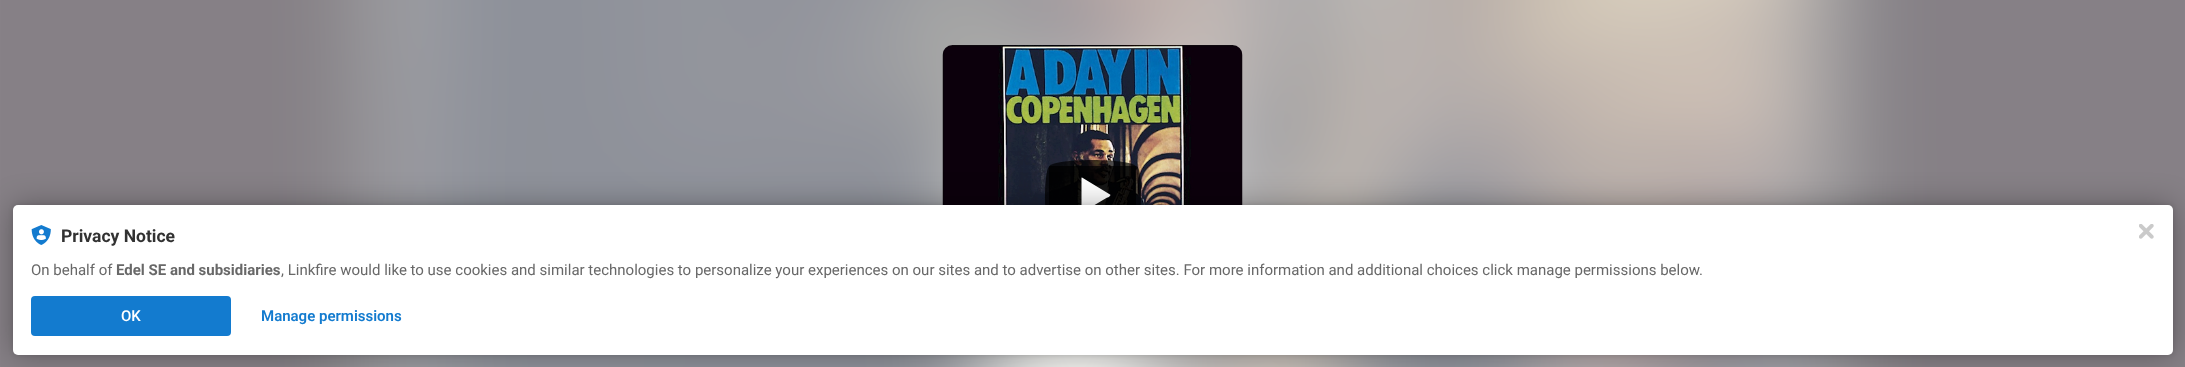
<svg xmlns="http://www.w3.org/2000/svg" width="2185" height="367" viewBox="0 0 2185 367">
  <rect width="100%" height="100%" fill="#fff"/>
  <image x="0" y="0" width="2185" height="367" href="img/1.png"/>
  <image x="942" y="45" width="301" height="160" href="img/2.png"/>
  <path d="M1092 160C1117 160 1136 163 1136 167V223C1136 227 1117 230 1092 230C1068 230 1049 227 1049 223V167C1049 163 1068 160 1092 160Z" fill="#000000b3"/>
  <path d="M1050 166H1136C1143 166 1141 208 1140 215C1140 217 1139 224 1136 224H1050C1043 224 1044 166 1050 166Z" fill="#000000b3"/>
  <path d="M1110 194.5L1082 177.5C1081.5 177.5 1081.5 178 1081.5 178.5V212V212.5H1082L1105.5 198.5C1107 197.5 1110 197 1110.5 195Z" fill="#fff"/>
  <rect x="13" y="205" width="2160" height="150" rx="5" fill="#0000001f" filter="blur(2.5px)"/>
  <rect x="13" y="205" width="2160" height="150" rx="5" fill="#0000004d" filter="blur(15px)"/>
  <rect x="13" y="205" width="2160" height="150" rx="5" fill="#fff"/>
  <image x="31" y="225" width="20" height="20" href="img/3.png"/>
  <rect x="31" y="296" width="200" height="40" rx="4" fill="#137bcf"/>
  <image x="2139" y="224" width="15" height="15" href="img/4.png"/>
  <text x="61" y="242" font-family="Roboto" font-size="17.5" font-weight="bold" fill="#323232">Privacy Notice</text>
  <text x="31" y="275" font-family="Roboto" font-size="15" fill="#686868">On behalf of</text>
  <text x="116" y="275" font-family="Roboto" font-size="15" font-weight="bold" fill="#686868">Edel SE and subsidiaries</text>
  <text x="281" y="275" font-family="Roboto" font-size="15" fill="#686868">, Linkfire would like to use cookies and similar technologies to personalize your experiences on our sites and to advertise on other sites. For more information and additional choices click manage permissions below.</text>
  <text x="121" y="321" font-family="Roboto" font-size="15" font-weight="500" fill="#fff">OK</text>
  <text x="261" y="321" font-family="Roboto" font-size="15" font-weight="600" fill="#137bcf">Manage permissions</text>
</svg>
